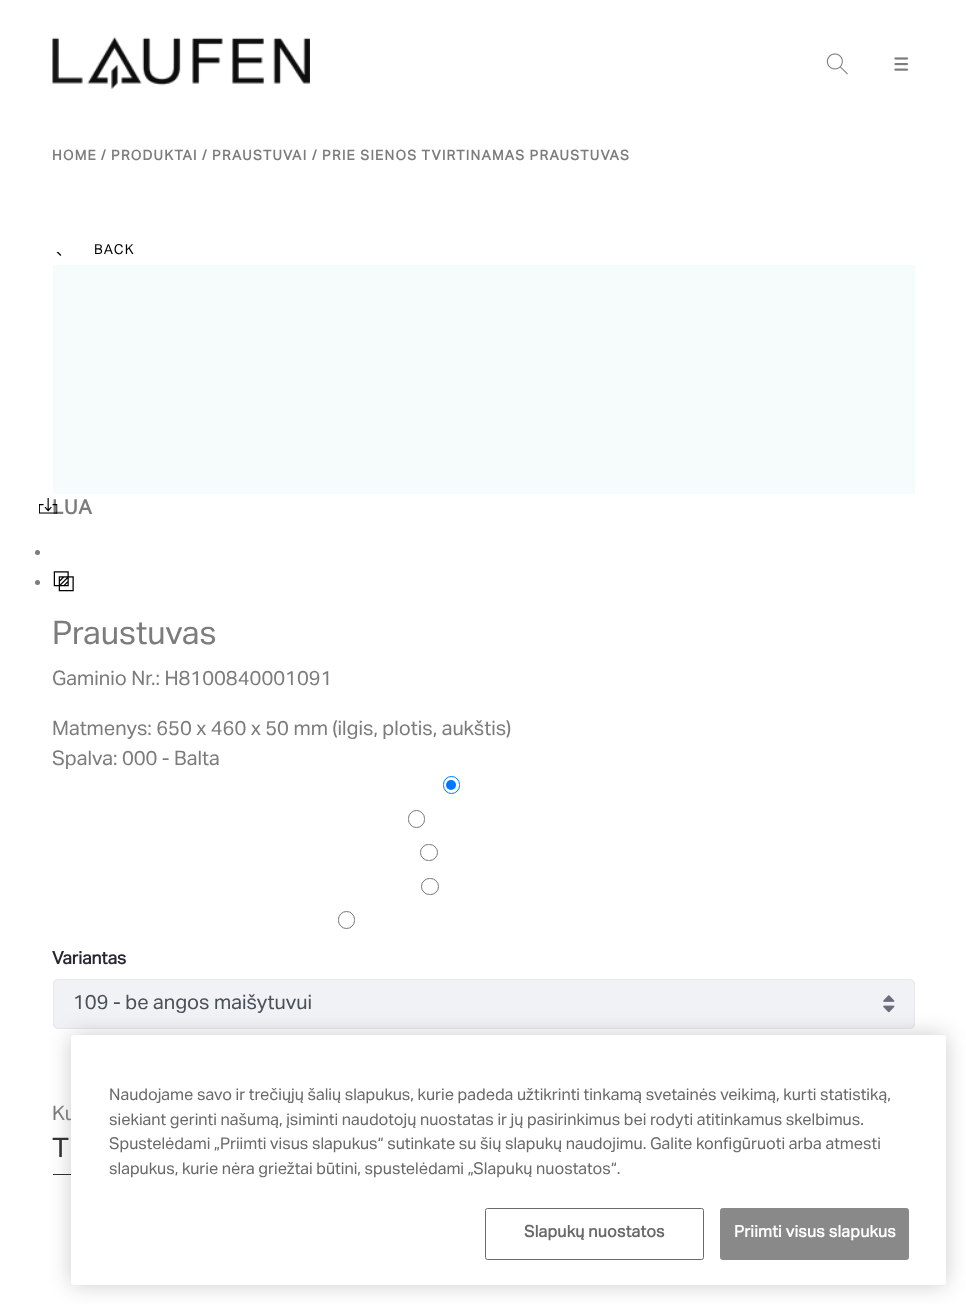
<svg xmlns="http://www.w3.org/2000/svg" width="966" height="1304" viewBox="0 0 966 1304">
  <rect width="100%" height="100%" fill="#fff"/>
  <image x="52" y="37" width="258" height="52" href="img/1.png"/>
  <image x="826" y="53" width="22" height="22" href="img/2.png"/>
  <image x="894" y="57" width="15" height="14" href="img/3.png"/>
  <image x="56" y="252" width="6" height="4" href="img/4.png"/>
  <path d="M53 265h862v229H53z" fill="#f6fbfc"/>
  <circle cx="37.5" cy="552.5" r="2.5" fill="#7c7c7c"/>
  <circle cx="37.5" cy="582.5" r="2.5" fill="#7c7c7c"/>
  <image x="53" y="571" width="21" height="21" href="img/5.png"/>
  <rect x="443.5" y="776.5" width="16" height="17" rx="8" fill="none" stroke="#0075ff"/>
  <circle cx="451" cy="785" r="5" fill="#0075ff"/>
  <rect x="408.5" y="810.5" width="16" height="17" rx="8" fill="none" stroke="#767676"/>
  <rect x="420.5" y="844.5" width="17" height="16" rx="8" fill="none" stroke="#767676"/>
  <rect x="421.5" y="878.5" width="17" height="16" rx="8" fill="none" stroke="#767676"/>
  <rect x="338.5" y="911.5" width="16" height="17" rx="8" fill="none" stroke="#767676"/>
  <rect x="53" y="979" width="862" height="50" rx="5" fill="#f1f2f5"/>
  <image x="883" y="995" width="12" height="18" href="img/7.png"/>
  <rect x="53.5" y="979.5" width="861" height="49" rx="4.5" fill="none" stroke="#e7e7ed"/>
  <path d="M53 1174h18v1H53z" fill="#333"/>
  <rect x="71" y="1035" width="875" height="250" rx="3" fill="#00000033" filter="blur(11px)"/>
  <g font-family="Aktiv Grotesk" font-size="13.75" font-weight="bold" letter-spacing="1.25" fill="#7c7c7c">
    <text x="52" y="160">HOME</text>
    <text x="101" y="160">/ PRODUKTAI</text>
    <text x="202" y="160">/ PRAUSTUVAI</text>
    <text x="312" y="160">/ PRIE SIENOS TVIRTINAMAS PRAUSTUVAS</text>
  </g>
  <text x="94" y="254" font-family="Aktiv Grotesk" font-size="13.75" letter-spacing="1.25" fill="#000">BACK</text>
  <text x="52" y="514" font-family="Aktiv Grotesk" font-size="20" font-weight="bold" letter-spacing="1.25" fill="#7c7c7c">LUA</text>
  <text x="52" y="644" font-family="Aktiv Grotesk" font-size="32.5" fill="#7c7c7c">Praustuvas</text>
  <text x="52" y="685" font-family="Aktiv Grotesk" font-size="20" fill="#7c7c7c">Gaminio Nr.: H8100840001091</text>
  <image x="39" y="498" width="19" height="16" href="img/6.png"/>
  <g font-family="Aktiv Grotesk" font-size="20" fill="#7c7c7c">
    <text x="52" y="735">Matmenys: 650 x 460 x 50 mm (ilgis, plotis, aukštis)</text>
    <text x="52" y="765">Spalva: 000 - Balta</text>
  </g>
  <text x="52" y="964" font-family="Aktiv Grotesk" font-size="17.5" font-weight="bold" fill="#272833">Variantas</text>
  <text x="73" y="1009" font-family="Aktiv Grotesk" font-size="20" fill="#495057">109 - be angos maišytuvui</text>
  <text x="52" y="1120" font-family="Aktiv Grotesk" font-size="20" fill="#7c7c7c">Ku</text>
  <text x="52" y="1157" font-family="Liberation Sans" font-size="28" letter-spacing="1.25" fill="#333">T</text>
  <rect x="71" y="1035" width="875" height="250" rx="3" fill="#fff"/>
  <g font-family="Aktiv Grotesk" font-size="16.25" fill="#696969">
    <text x="109" y="1100">Naudojame savo ir trečiųjų šalių slapukus, kurie padeda užtikrinti tinkamą svetainės veikimą, kurti statistiką,</text>
    <text x="109" y="1125">siekiant gerinti našumą, įsiminti naudotojų nuostatas ir jų pasirinkimus bei rodyti atitinkamus skelbimus.</text>
    <text x="109" y="1149">Spustelėdami „Priimti visus slapukus“ sutinkate su šių slapukų naudojimu. Galite konfigūruoti arba atmesti</text>
    <text x="109" y="1174">slapukus, kurie nėra griežtai būtini, spustelėdami „Slapukų nuostatos“.</text>
  </g>
  <rect x="485.5" y="1208.5" width="218" height="51" rx="2" fill="none" stroke="#696969"/>
  <text x="524" y="1237" font-family="Aktiv Grotesk" font-size="16.25" font-weight="bold" letter-spacing="0.2" fill="#696969">Slapukų nuostatos</text>
  <rect x="720.5" y="1208.5" width="188" height="51" rx="2" fill="#898989" stroke="#898989"/>
  <text x="734" y="1237" font-family="Aktiv Grotesk" font-size="16.25" font-weight="bold" letter-spacing="0.2" fill="#fff">Priimti visus slapukus</text>
</svg>
